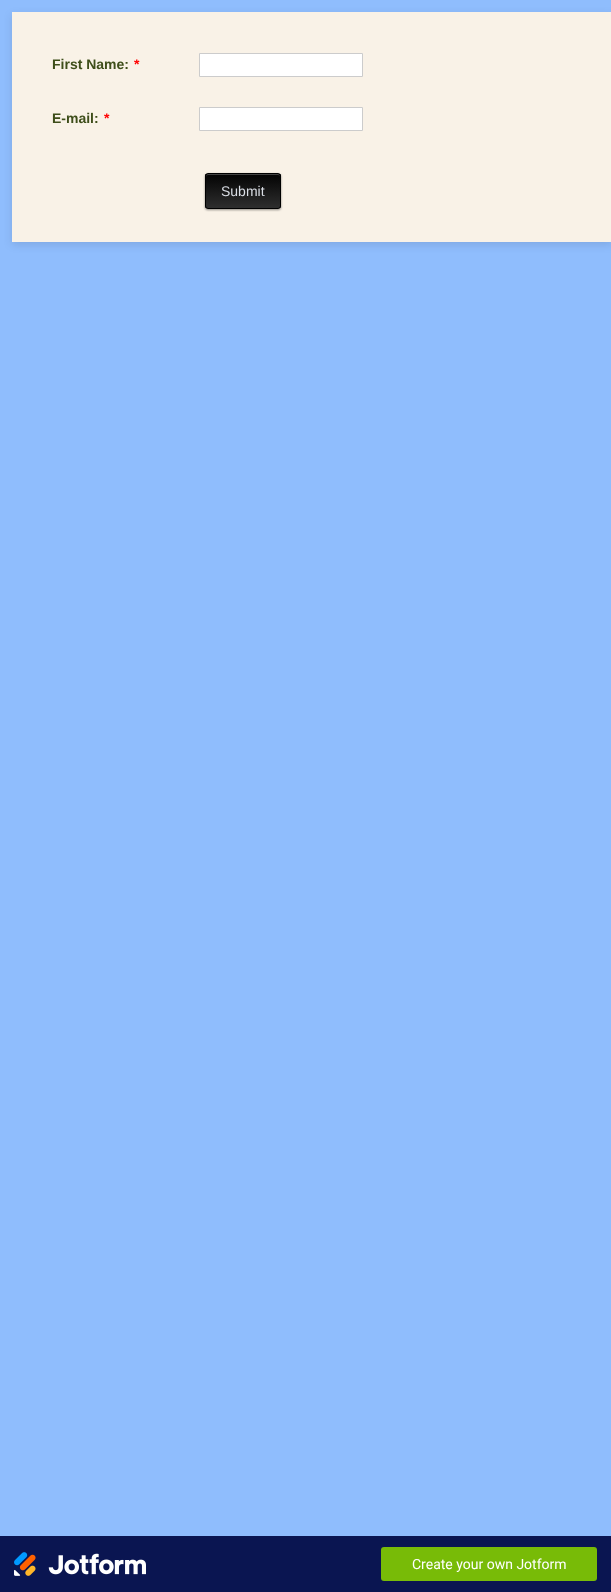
<svg xmlns="http://www.w3.org/2000/svg" width="611" height="1592" viewBox="0 0 611 1592">
  <defs>
    <clipPath id="clip1"><rect x="205" y="173" width="76" height="36" rx="3"/></clipPath>
    <linearGradient id="g1" gradientUnits="userSpaceOnUse" x1="243" y1="208" x2="243" y2="174"><stop offset="0" stop-color="#2e2e2e"/><stop offset="1" stop-color="#030303"/></linearGradient>
  </defs>
  <rect width="100%" height="100%" fill="#8fbdfd"/>
  <path d="M12 15h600v230H12z" fill="#0000001a" filter="blur(4.5px)"/>
  <path d="M12 12h599v230H12z" fill="#f9f2e7"/>
  <path d="M199.5 53.5h163v23H199.5z" fill="#fff" stroke="#ccc"/>
  <path d="M199.5 107.5h163v23H199.5z" fill="#fff" stroke="#ccc"/>
  <rect x="205" y="174" width="76" height="36" rx="3" fill="#00000070" filter="blur(1px)"/>
  <g clip-path="url(#clip1)">
    <path d="M205 174h76v34H205z" fill="url(#g1)"/>
  </g>
  <path d="M208 175H278C279 175 280 176 280 177C280 171 270 174 266 174H220C216 174 206 171 206 177C206 176 207 175 208 175Z" fill="#ffffff40"/>
  <rect x="205.5" y="173.5" width="75" height="35" rx="2.5" fill="none" stroke="#000"/>
  <path d="M0 1536h611v56H0z" fill="#0a1551"/>
  <image x="14" y="1552" width="132" height="24" href="img/1.png"/>
  <rect x="381" y="1547" width="216" height="34" rx="3" fill="#78bb07"/>
  <text x="52" y="69" font-family="Liberation Sans" font-size="14" font-weight="bold" fill="#3e4e1a">First Name:</text>
  <text x="134" y="69" font-family="Liberation Sans" font-size="14" font-weight="bold" fill="#f00">*</text>
  <text x="52" y="123" font-family="Liberation Sans" font-size="14" font-weight="bold" fill="#3e4e1a">E-mail:</text>
  <text x="104" y="123" font-family="Liberation Sans" font-size="14" font-weight="bold" fill="#f00">*</text>
  <text x="221" y="196" font-family="Liberation Sans" font-size="14" fill="#dadee5">Submit</text>
  <text x="412" y="1569" font-family="Roboto" font-size="14" fill="#fff">Create your own Jotform</text>
</svg>
